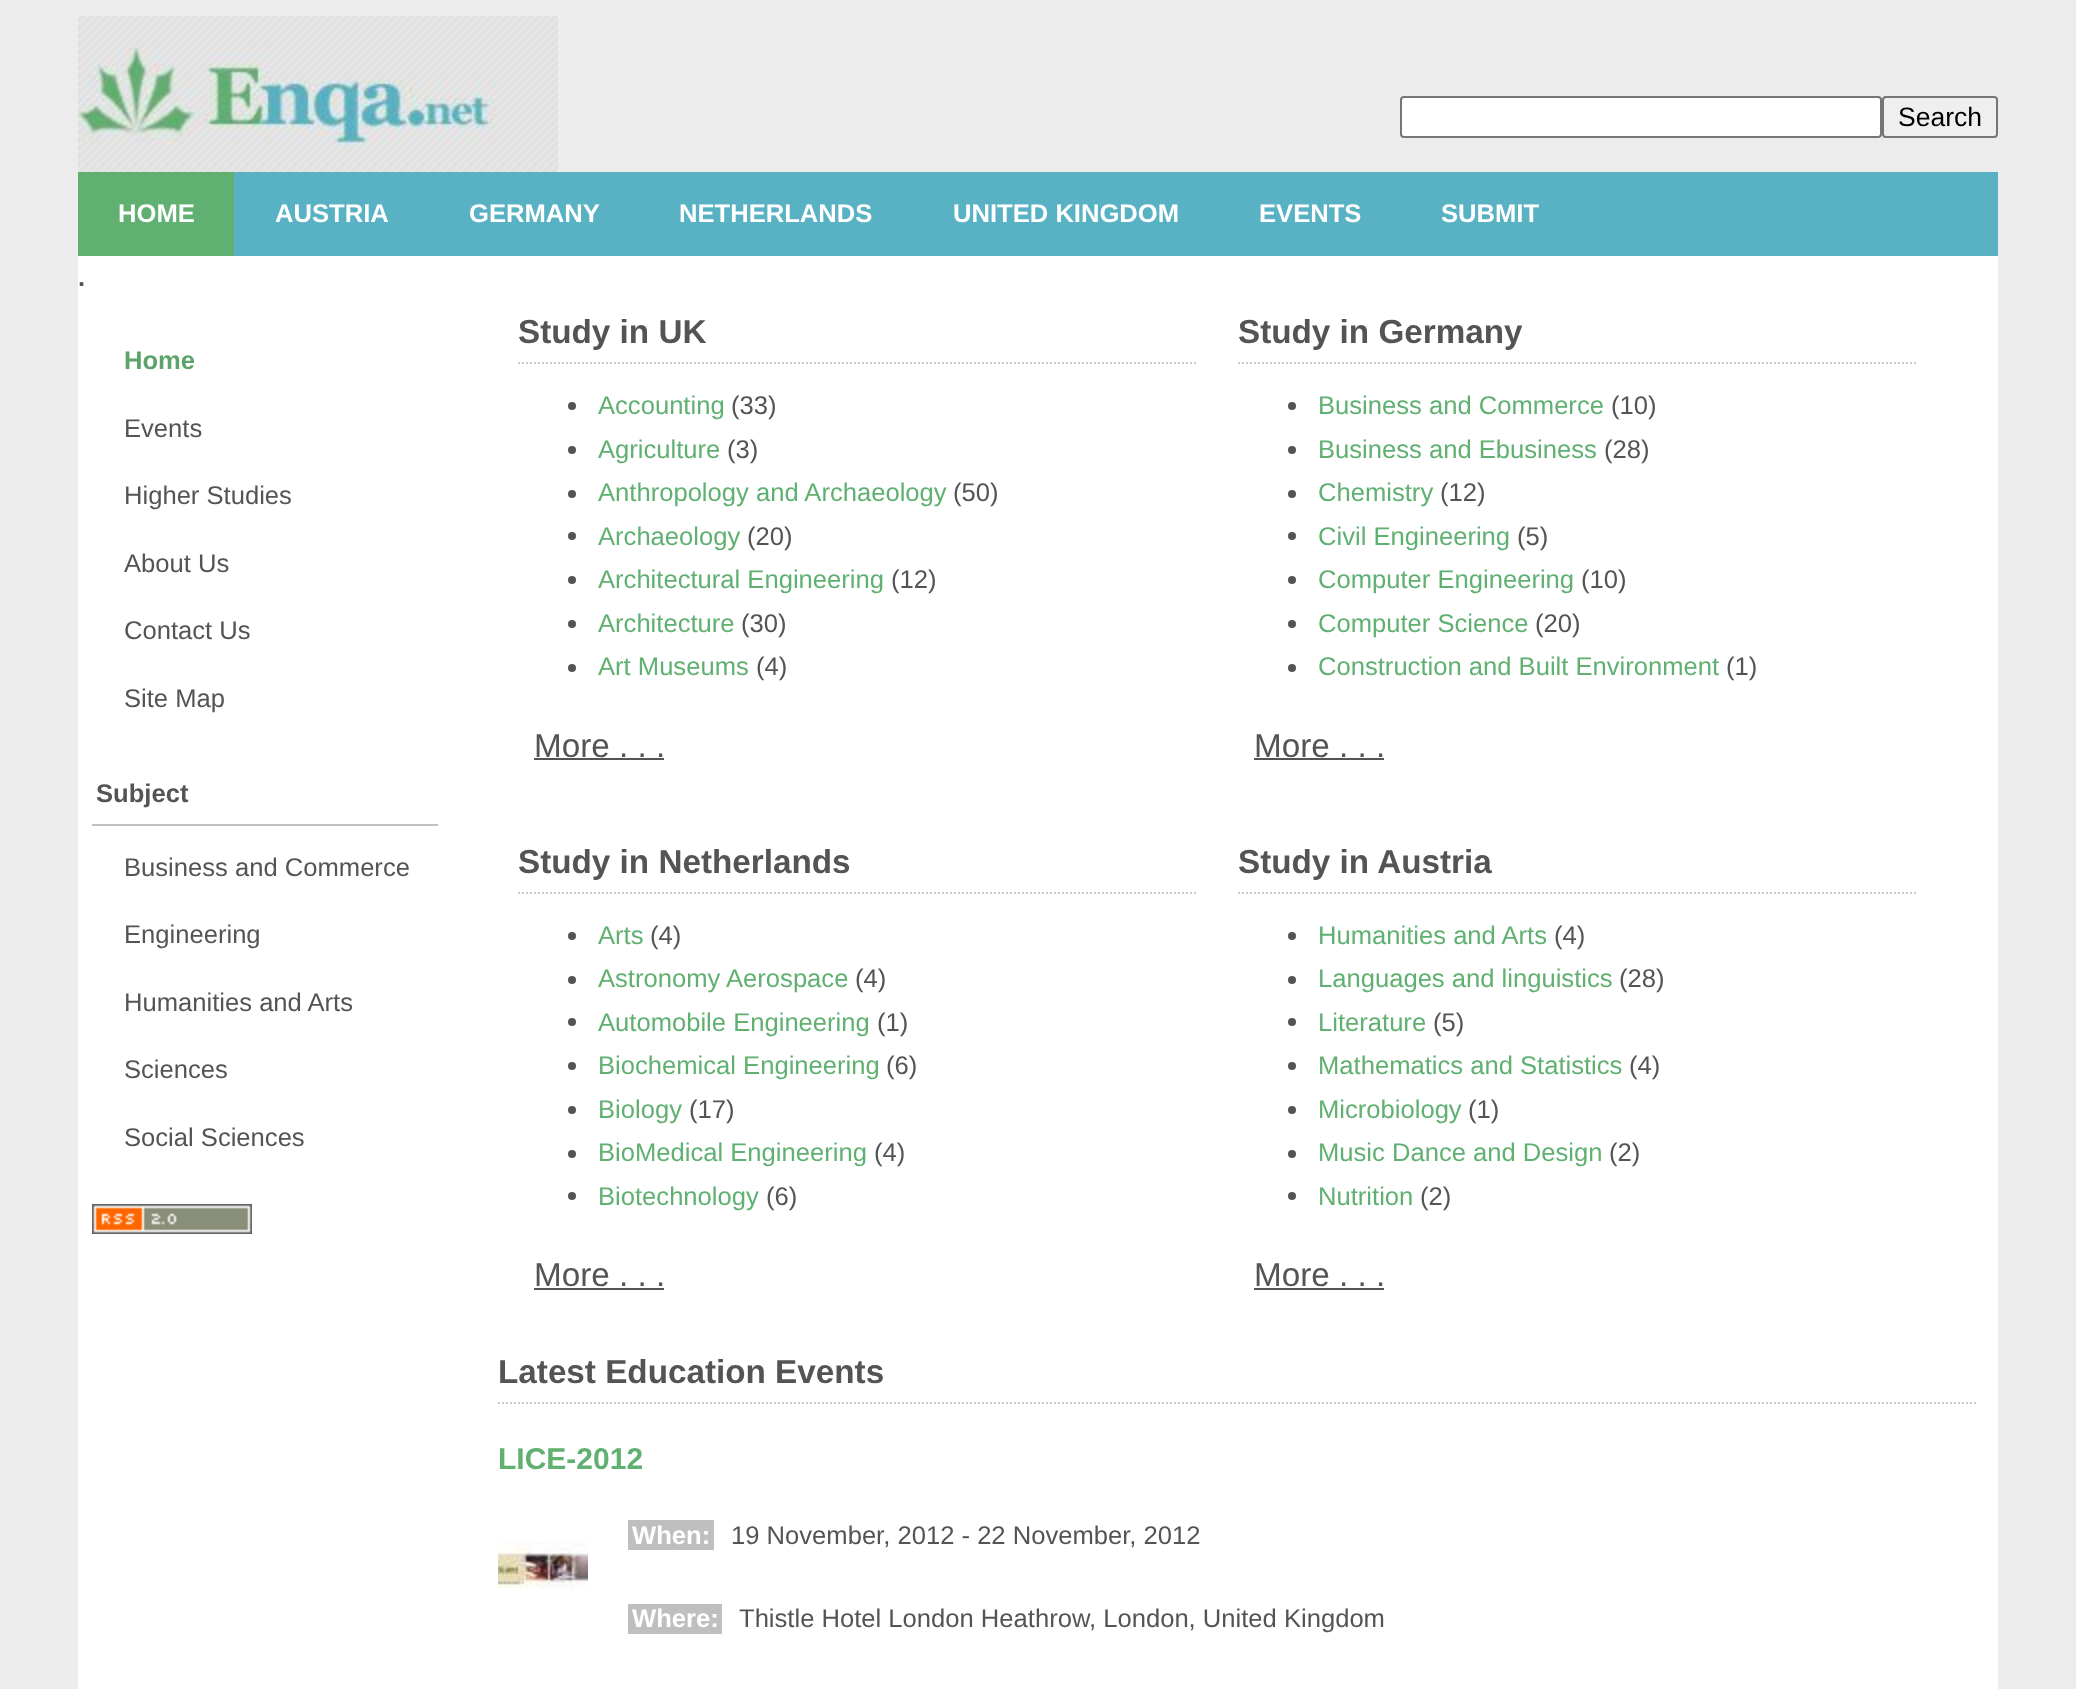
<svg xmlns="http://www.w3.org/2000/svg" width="2076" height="1689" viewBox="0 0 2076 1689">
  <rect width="100%" height="100%" fill="#edecec"/>
  <image x="78" y="16" width="480" height="156" href="img/1.png"/>
  <rect x="1401" y="97" width="480" height="40" rx="3" fill="#fff" stroke="#767676" stroke-width="2"/>
  <rect x="1883" y="97" width="114" height="40" rx="3" fill="#efefef" stroke="#767676" stroke-width="2"/>
  <path d="M234 172h1764v84H234z" fill="#59b2c4"/>
  <path d="M78 172h156v84H78z" fill="#60b071"/>
  <path d="M78 256h1920v1433H78z" fill="#fff"/>
  <path d="M92 824h346v2H92z" fill="#c0c0c0"/>
  <image x="92" y="1204" width="160" height="30" href="img/2.png"/>
  <path d="M518 363H1198" fill="none" stroke="#ccc" stroke-width="2" stroke-dasharray="2 2"/>
  <circle cx="572" cy="406" r="4" fill="#545454"/>
  <circle cx="572" cy="450" r="4" fill="#545454"/>
  <circle cx="572" cy="494" r="4" fill="#545454"/>
  <circle cx="572" cy="536" r="4" fill="#545454"/>
  <circle cx="572" cy="580" r="4" fill="#545454"/>
  <circle cx="572" cy="624" r="4" fill="#545454"/>
  <circle cx="572" cy="668" r="4" fill="#545454"/>
  <path d="M534 758h130v2H534z" fill="#545454"/>
  <path d="M518 893H1198" fill="none" stroke="#ccc" stroke-width="2" stroke-dasharray="2 2"/>
  <circle cx="572" cy="936" r="4" fill="#545454"/>
  <circle cx="572" cy="980" r="4" fill="#545454"/>
  <circle cx="572" cy="1022" r="4" fill="#545454"/>
  <circle cx="572" cy="1066" r="4" fill="#545454"/>
  <circle cx="572" cy="1110" r="4" fill="#545454"/>
  <circle cx="572" cy="1154" r="4" fill="#545454"/>
  <circle cx="572" cy="1196" r="4" fill="#545454"/>
  <path d="M534 1288h130v2H534z" fill="#545454"/>
  <path d="M1238 363H1918" fill="none" stroke="#ccc" stroke-width="2" stroke-dasharray="2 2"/>
  <circle cx="1292" cy="406" r="4" fill="#545454"/>
  <circle cx="1292" cy="450" r="4" fill="#545454"/>
  <circle cx="1292" cy="494" r="4" fill="#545454"/>
  <circle cx="1292" cy="536" r="4" fill="#545454"/>
  <circle cx="1292" cy="580" r="4" fill="#545454"/>
  <circle cx="1292" cy="624" r="4" fill="#545454"/>
  <circle cx="1292" cy="668" r="4" fill="#545454"/>
  <path d="M1254 758h130v2H1254z" fill="#545454"/>
  <path d="M1238 893H1918" fill="none" stroke="#ccc" stroke-width="2" stroke-dasharray="2 2"/>
  <circle cx="1292" cy="936" r="4" fill="#545454"/>
  <circle cx="1292" cy="980" r="4" fill="#545454"/>
  <circle cx="1292" cy="1022" r="4" fill="#545454"/>
  <circle cx="1292" cy="1066" r="4" fill="#545454"/>
  <circle cx="1292" cy="1110" r="4" fill="#545454"/>
  <circle cx="1292" cy="1154" r="4" fill="#545454"/>
  <circle cx="1292" cy="1196" r="4" fill="#545454"/>
  <path d="M1254 1288h130v2H1254z" fill="#545454"/>
  <path d="M498 1403H1976" fill="none" stroke="#ccc" stroke-width="2" stroke-dasharray="2 2"/>
  <path d="M628 1520h86v30H628z" fill="#bfbfbf"/>
  <image x="498" y="1540" width="90" height="49" href="img/3.png"/>
  <path d="M628 1604h94v30H628z" fill="#bfbfbf"/>
  <text x="1898" y="126" font-family="Liberation Sans" font-size="26.5" fill="#000">Search</text>
  <g font-family="Liberation Sans" font-size="25.6" font-weight="bold" fill="#fff">
    <text x="118" y="222">HOME</text>
    <text x="275" y="222">AUSTRIA</text>
    <text x="469" y="222">GERMANY</text>
    <text x="679" y="222">NETHERLANDS</text>
    <text x="953" y="222">UNITED KINGDOM</text>
    <text x="1259" y="222">EVENTS</text>
    <text x="1441" y="222">SUBMIT</text>
  </g>
  <text x="78" y="286" font-family="Liberation Sans" font-size="25.6" font-weight="bold" fill="#545454">.</text>
  <text x="124" y="369" font-family="Liberation Sans" font-size="25.6" font-weight="bold" fill="#5ba36a">Home</text>
  <g font-family="Liberation Sans" font-size="25.6" fill="#545454">
    <text x="124" y="437">Events</text>
    <text x="124" y="504">Higher Studies</text>
    <text x="124" y="572">About Us</text>
    <text x="124" y="639">Contact Us</text>
    <text x="124" y="707">Site Map</text>
  </g>
  <text x="96" y="802" font-family="Liberation Sans" font-size="25.6" font-weight="bold" fill="#545454">Subject</text>
  <g font-family="Liberation Sans" font-size="25.6" fill="#545454">
    <text x="124" y="876">Business and Commerce</text>
    <text x="124" y="943">Engineering</text>
    <text x="124" y="1011">Humanities and Arts</text>
    <text x="124" y="1078">Sciences</text>
    <text x="124" y="1146">Social Sciences</text>
  </g>
  <text x="518" y="343" font-family="Liberation Sans" font-size="33.25" font-weight="bold" fill="#545454">Study in UK</text>
  <text x="598" y="414" font-family="Liberation Sans" font-size="25.6" fill="#60b071">Accounting</text>
  <text x="731" y="414" font-family="Liberation Sans" font-size="25.6" fill="#545454">(33)</text>
  <text x="598" y="458" font-family="Liberation Sans" font-size="25.6" fill="#60b071">Agriculture</text>
  <text x="727" y="458" font-family="Liberation Sans" font-size="25.6" fill="#545454">(3)</text>
  <text x="598" y="501" font-family="Liberation Sans" font-size="25.6" fill="#60b071">Anthropology and Archaeology</text>
  <text x="953" y="501" font-family="Liberation Sans" font-size="25.6" fill="#545454">(50)</text>
  <text x="598" y="545" font-family="Liberation Sans" font-size="25.6" fill="#60b071">Archaeology</text>
  <text x="747" y="545" font-family="Liberation Sans" font-size="25.6" fill="#545454">(20)</text>
  <text x="598" y="588" font-family="Liberation Sans" font-size="25.6" fill="#60b071">Architectural Engineering</text>
  <text x="891" y="588" font-family="Liberation Sans" font-size="25.6" fill="#545454">(12)</text>
  <text x="598" y="632" font-family="Liberation Sans" font-size="25.6" fill="#60b071">Architecture</text>
  <text x="741" y="632" font-family="Liberation Sans" font-size="25.6" fill="#545454">(30)</text>
  <text x="598" y="675" font-family="Liberation Sans" font-size="25.6" fill="#60b071">Art Museums</text>
  <text x="756" y="675" font-family="Liberation Sans" font-size="25.6" fill="#545454">(4)</text>
  <text x="534" y="757" font-family="Liberation Sans" font-size="33.25" fill="#545454">More . . .</text>
  <text x="518" y="873" font-family="Liberation Sans" font-size="33.25" font-weight="bold" fill="#545454">Study in Netherlands</text>
  <text x="598" y="944" font-family="Liberation Sans" font-size="25.6" fill="#60b071">Arts</text>
  <text x="650" y="944" font-family="Liberation Sans" font-size="25.6" fill="#545454">(4)</text>
  <text x="598" y="987" font-family="Liberation Sans" font-size="25.6" fill="#60b071">Astronomy Aerospace</text>
  <text x="855" y="987" font-family="Liberation Sans" font-size="25.6" fill="#545454">(4)</text>
  <text x="598" y="1031" font-family="Liberation Sans" font-size="25.6" fill="#60b071">Automobile Engineering</text>
  <text x="877" y="1031" font-family="Liberation Sans" font-size="25.6" fill="#545454">(1)</text>
  <text x="598" y="1074" font-family="Liberation Sans" font-size="25.6" fill="#60b071">Biochemical Engineering</text>
  <text x="886" y="1074" font-family="Liberation Sans" font-size="25.6" fill="#545454">(6)</text>
  <text x="598" y="1118" font-family="Liberation Sans" font-size="25.6" fill="#60b071">Biology</text>
  <text x="689" y="1118" font-family="Liberation Sans" font-size="25.6" fill="#545454">(17)</text>
  <text x="598" y="1161" font-family="Liberation Sans" font-size="25.6" fill="#60b071">BioMedical Engineering</text>
  <text x="874" y="1161" font-family="Liberation Sans" font-size="25.6" fill="#545454">(4)</text>
  <text x="598" y="1205" font-family="Liberation Sans" font-size="25.6" fill="#60b071">Biotechnology</text>
  <text x="766" y="1205" font-family="Liberation Sans" font-size="25.6" fill="#545454">(6)</text>
  <text x="534" y="1286" font-family="Liberation Sans" font-size="33.25" fill="#545454">More . . .</text>
  <text x="1238" y="343" font-family="Liberation Sans" font-size="33.25" font-weight="bold" fill="#545454">Study in Germany</text>
  <text x="1318" y="414" font-family="Liberation Sans" font-size="25.6" fill="#60b071">Business and Commerce</text>
  <text x="1611" y="414" font-family="Liberation Sans" font-size="25.6" fill="#545454">(10)</text>
  <text x="1318" y="458" font-family="Liberation Sans" font-size="25.6" fill="#60b071">Business and Ebusiness</text>
  <text x="1604" y="458" font-family="Liberation Sans" font-size="25.6" fill="#545454">(28)</text>
  <text x="1318" y="501" font-family="Liberation Sans" font-size="25.6" fill="#60b071">Chemistry</text>
  <text x="1440" y="501" font-family="Liberation Sans" font-size="25.6" fill="#545454">(12)</text>
  <text x="1318" y="545" font-family="Liberation Sans" font-size="25.6" fill="#60b071">Civil Engineering</text>
  <text x="1517" y="545" font-family="Liberation Sans" font-size="25.6" fill="#545454">(5)</text>
  <text x="1318" y="588" font-family="Liberation Sans" font-size="25.6" fill="#60b071">Computer Engineering</text>
  <text x="1581" y="588" font-family="Liberation Sans" font-size="25.6" fill="#545454">(10)</text>
  <text x="1318" y="632" font-family="Liberation Sans" font-size="25.6" fill="#60b071">Computer Science</text>
  <text x="1535" y="632" font-family="Liberation Sans" font-size="25.6" fill="#545454">(20)</text>
  <text x="1318" y="675" font-family="Liberation Sans" font-size="25.6" fill="#60b071">Construction and Built Environment</text>
  <text x="1726" y="675" font-family="Liberation Sans" font-size="25.6" fill="#545454">(1)</text>
  <text x="1254" y="757" font-family="Liberation Sans" font-size="33.25" fill="#545454">More . . .</text>
  <text x="1238" y="873" font-family="Liberation Sans" font-size="33.25" font-weight="bold" fill="#545454">Study in Austria</text>
  <text x="1318" y="944" font-family="Liberation Sans" font-size="25.6" fill="#60b071">Humanities and Arts</text>
  <text x="1554" y="944" font-family="Liberation Sans" font-size="25.6" fill="#545454">(4)</text>
  <text x="1318" y="987" font-family="Liberation Sans" font-size="25.6" fill="#60b071">Languages and linguistics</text>
  <text x="1619" y="987" font-family="Liberation Sans" font-size="25.6" fill="#545454">(28)</text>
  <text x="1318" y="1031" font-family="Liberation Sans" font-size="25.6" fill="#60b071">Literature</text>
  <text x="1433" y="1031" font-family="Liberation Sans" font-size="25.6" fill="#545454">(5)</text>
  <text x="1318" y="1074" font-family="Liberation Sans" font-size="25.6" fill="#60b071">Mathematics and Statistics</text>
  <text x="1629" y="1074" font-family="Liberation Sans" font-size="25.6" fill="#545454">(4)</text>
  <text x="1318" y="1118" font-family="Liberation Sans" font-size="25.6" fill="#60b071">Microbiology</text>
  <text x="1468" y="1118" font-family="Liberation Sans" font-size="25.6" fill="#545454">(1)</text>
  <text x="1318" y="1161" font-family="Liberation Sans" font-size="25.6" fill="#60b071">Music Dance and Design</text>
  <text x="1609" y="1161" font-family="Liberation Sans" font-size="25.6" fill="#545454">(2)</text>
  <text x="1318" y="1205" font-family="Liberation Sans" font-size="25.6" fill="#60b071">Nutrition</text>
  <text x="1420" y="1205" font-family="Liberation Sans" font-size="25.6" fill="#545454">(2)</text>
  <text x="1254" y="1286" font-family="Liberation Sans" font-size="33.25" fill="#545454">More . . .</text>
  <text x="498" y="1383" font-family="Liberation Sans" font-size="33.25" font-weight="bold" fill="#545454">Latest Education Events</text>
  <text x="498" y="1469" font-family="Liberation Sans" font-size="30" font-weight="bold" fill="#60b071">LICE-2012</text>
  <text x="632" y="1544" font-family="Liberation Sans" font-size="25.6" font-weight="bold" fill="#fff">When:</text>
  <text x="731" y="1544" font-family="Liberation Sans" font-size="25.6" fill="#545454">19 November, 2012 - 22 November, 2012</text>
  <text x="632" y="1627" font-family="Liberation Sans" font-size="25.6" font-weight="bold" fill="#fff">Where:</text>
  <text x="739" y="1627" font-family="Liberation Sans" font-size="25.6" fill="#545454">Thistle Hotel London Heathrow, London, United Kingdom</text>
</svg>
